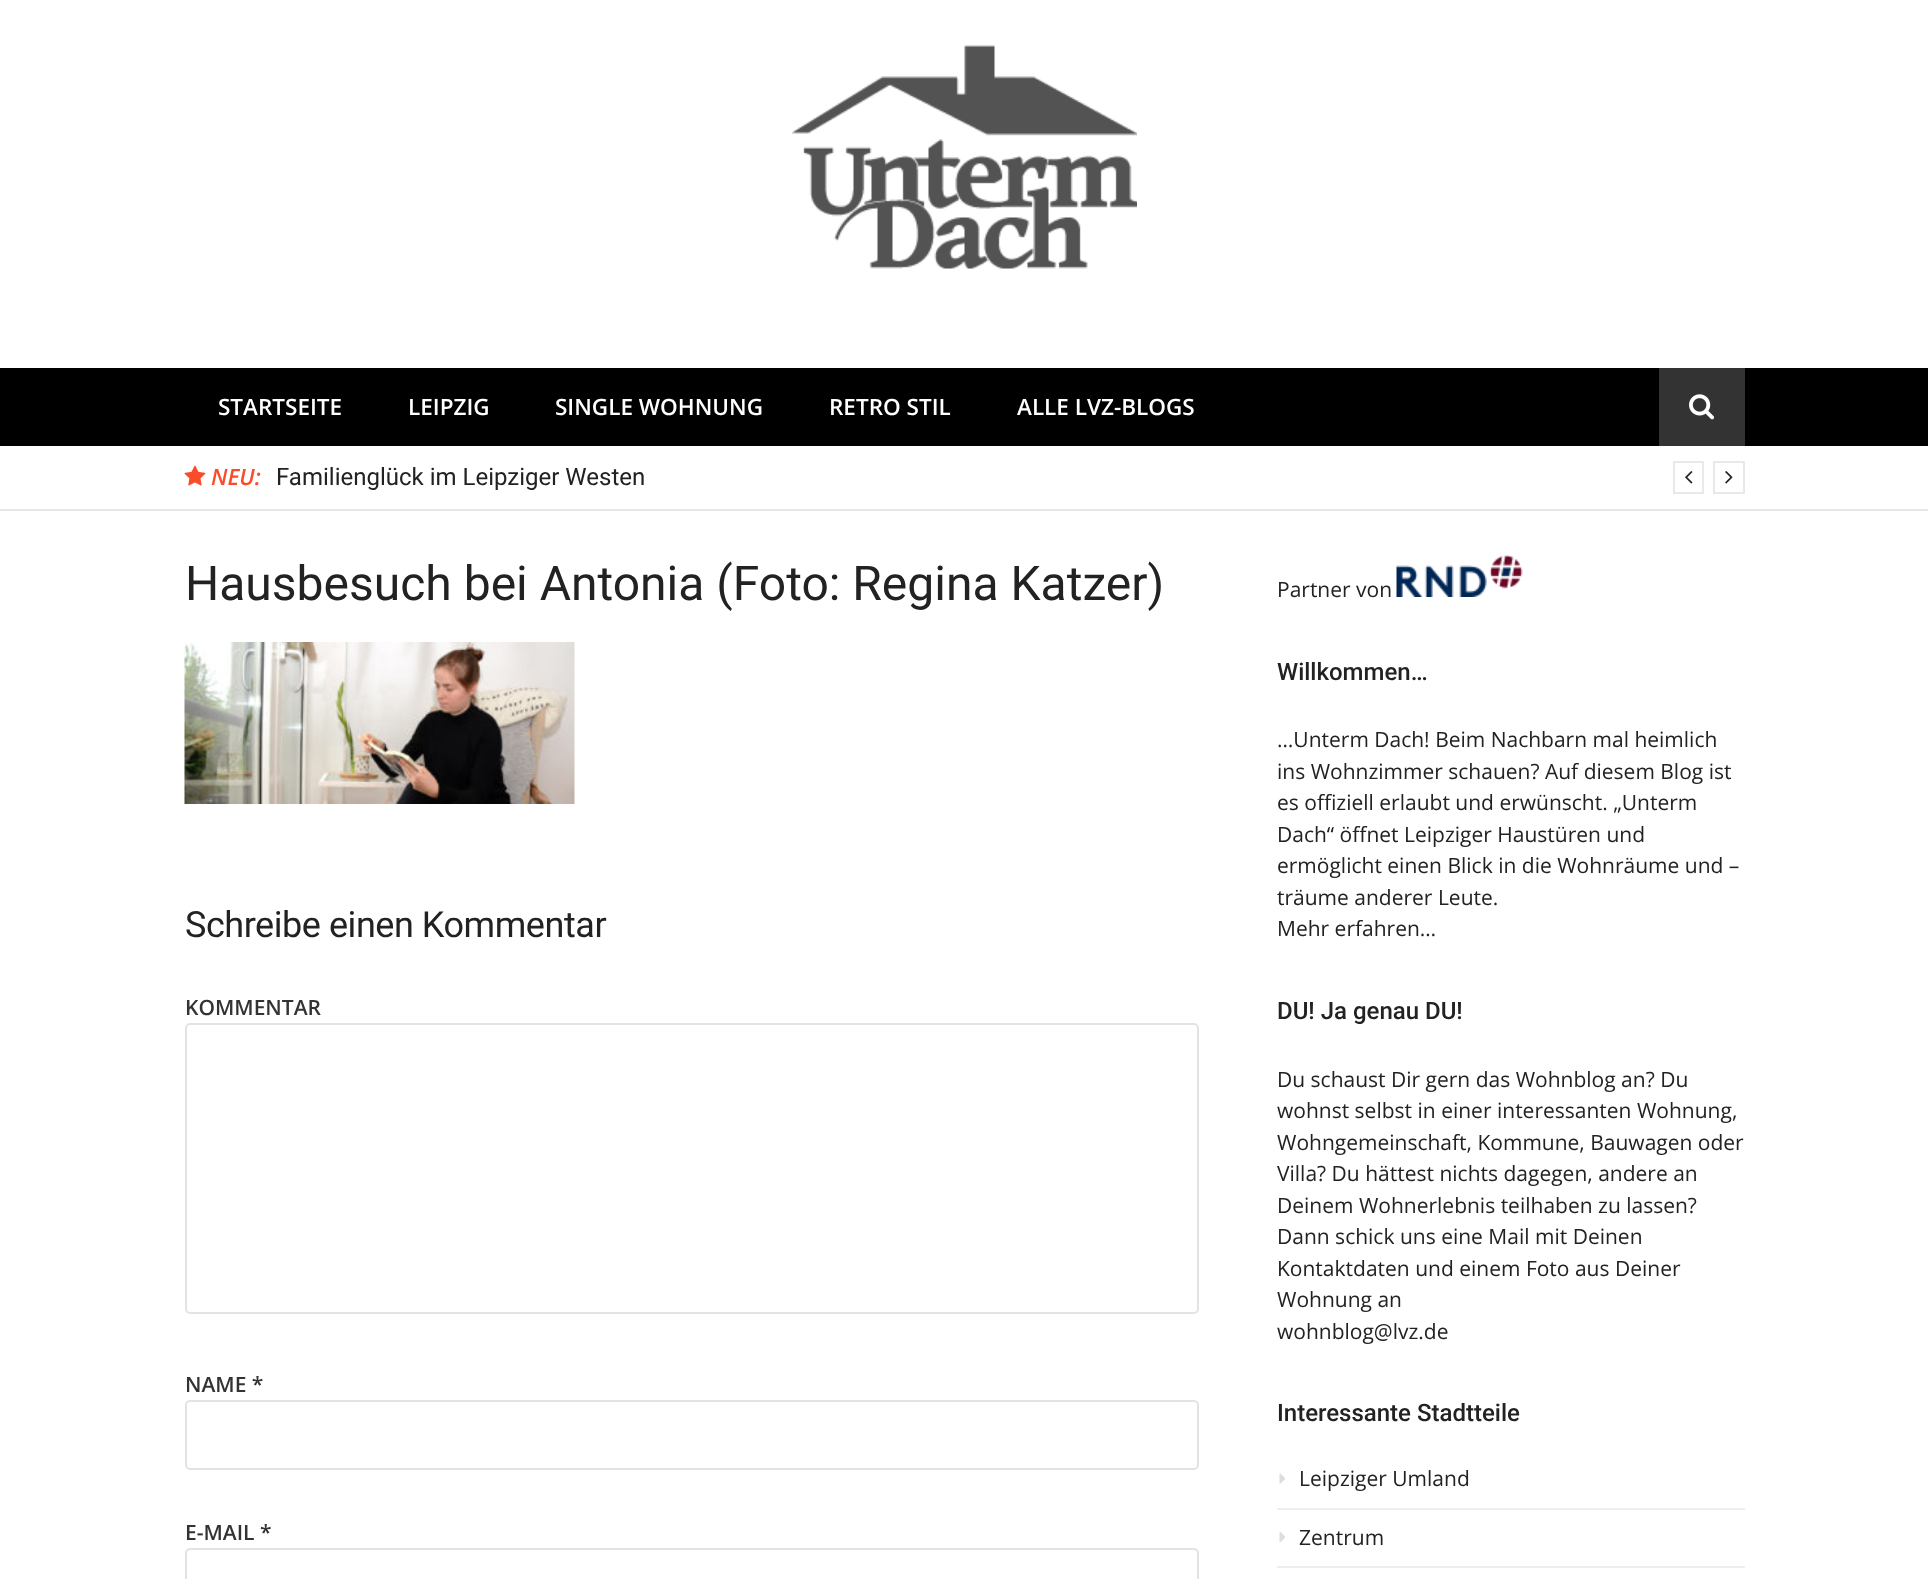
<svg xmlns="http://www.w3.org/2000/svg" width="1928" height="1579" viewBox="0 0 1928 1579">
  <rect width="100%" height="100%" fill="#fff"/>
  <image x="792" y="45" width="345" height="224" href="img/1.png"/>
  <path d="M0 368h1928v78H0z" fill="#000"/>
  <path d="M1659 368h86v78H1659z" fill="#333"/>
  <image x="1689" y="394" width="26" height="26" href="img/2.png"/>
  <path d="M0 509h1928v2H0z" fill="#e6e6e6"/>
  <image x="184" y="465" width="22" height="21" href="img/3.png"/>
  <path d="M1674 462h29v31H1674z" fill="none" stroke="#e9e9e9" stroke-width="2"/>
  <image x="1685" y="471" width="8" height="13" href="img/4.png"/>
  <path d="M1714 462h30v31H1714z" fill="none" stroke="#e9e9e9" stroke-width="2"/>
  <image x="1725" y="471" width="8" height="13" href="img/5.png"/>
  <image x="184" y="642" width="391" height="162" href="img/6.png"/>
  <rect x="186" y="1024" width="1012" height="289" rx="4" fill="none" stroke="#e3e3e3" stroke-width="2"/>
  <rect x="186" y="1401" width="1012" height="68" rx="4" fill="none" stroke="#e3e3e3" stroke-width="2"/>
  <rect x="186" y="1549" width="1012" height="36" rx="4" fill="none" stroke="#e3e3e3" stroke-width="2"/>
  <image x="1396" y="555" width="127" height="42" href="img/7.png"/>
  <image x="1279" y="1473" width="7" height="11" href="img/8.png"/>
  <path d="M1277 1508h468v2H1277z" fill="#eee"/>
  <image x="1279" y="1532" width="6" height="10" href="img/9.png"/>
  <path d="M1277 1566h468v2H1277z" fill="#eee"/>
  <g font-family="Open Sans" font-size="22.5" font-weight="600" fill="#fff">
    <text x="218" y="415">STARTSEITE</text>
    <text x="408" y="415">LEIPZIG</text>
    <text x="555" y="415">SINGLE WOHNUNG</text>
    <text x="829" y="415">RETRO STIL</text>
    <text x="1017" y="415">ALLE LVZ-BLOGS</text>
  </g>
  <text x="211" y="485" font-family="Open Sans" font-size="22.5" font-weight="600" font-style="italic" fill="#fa4c2a">NEU:</text>
  <text x="276" y="485" font-family="Roboto" font-size="24" fill="#222">Familienglück im Leipziger Westen</text>
  <text x="185" y="600" font-family="Roboto" font-size="48" fill="#222">Hausbesuch bei Antonia (Foto: Regina Katzer)</text>
  <text x="185" y="937" font-family="Roboto" font-size="36" letter-spacing="-0.45" fill="#222">Schreibe einen Kommentar</text>
  <g font-family="Open Sans" font-size="21" font-weight="600" fill="#333">
    <text x="185" y="1015">KOMMENTAR</text>
    <text x="185" y="1392">NAME *</text>
    <text x="185" y="1540">E-MAIL *</text>
  </g>
  <text x="1277" y="597" font-family="Open Sans" font-size="21" fill="#222">Partner von</text>
  <text x="1277" y="680" font-family="Roboto" font-size="24" font-weight="500" fill="#222">Willkommen…</text>
  <g font-family="Open Sans" font-size="21" fill="#222">
    <text x="1277" y="747">…Unterm Dach! Beim Nachbarn mal heimlich</text>
    <text x="1277" y="779">ins Wohnzimmer schauen? Auf diesem Blog ist</text>
    <text x="1277" y="810">es offiziell erlaubt und erwünscht. „Unterm</text>
    <text x="1277" y="842">Dach“ öffnet Leipziger Haustüren und</text>
    <text x="1277" y="873">ermöglicht einen Blick in die Wohnräume und –</text>
    <text x="1277" y="905">träume anderer Leute.</text>
    <text x="1277" y="936">Mehr erfahren…</text>
  </g>
  <text x="1277" y="1019" font-family="Roboto" font-size="24" font-weight="500" fill="#222">DU! Ja genau DU!</text>
  <g font-family="Open Sans" font-size="21" fill="#222">
    <text x="1277" y="1087">Du schaust Dir gern das Wohnblog an? Du</text>
    <text x="1277" y="1118">wohnst selbst in einer interessanten Wohnung,</text>
    <text x="1277" y="1150">Wohngemeinschaft, Kommune, Bauwagen oder</text>
    <text x="1277" y="1181">Villa? Du hättest nichts dagegen, andere an</text>
    <text x="1277" y="1213">Deinem Wohnerlebnis teilhaben zu lassen?</text>
    <text x="1277" y="1244">Dann schick uns eine Mail mit Deinen</text>
    <text x="1277" y="1276">Kontaktdaten und einem Foto aus Deiner</text>
    <text x="1277" y="1307">Wohnung an</text>
    <text x="1277" y="1339">wohnblog@lvz.de</text>
  </g>
  <text x="1277" y="1421" font-family="Roboto" font-size="24" font-weight="500" fill="#222">Interessante Stadtteile</text>
  <g font-family="Open Sans" font-size="21" fill="#222">
    <text x="1299" y="1486">Leipziger Umland</text>
    <text x="1299" y="1545">Zentrum</text>
  </g>
</svg>
